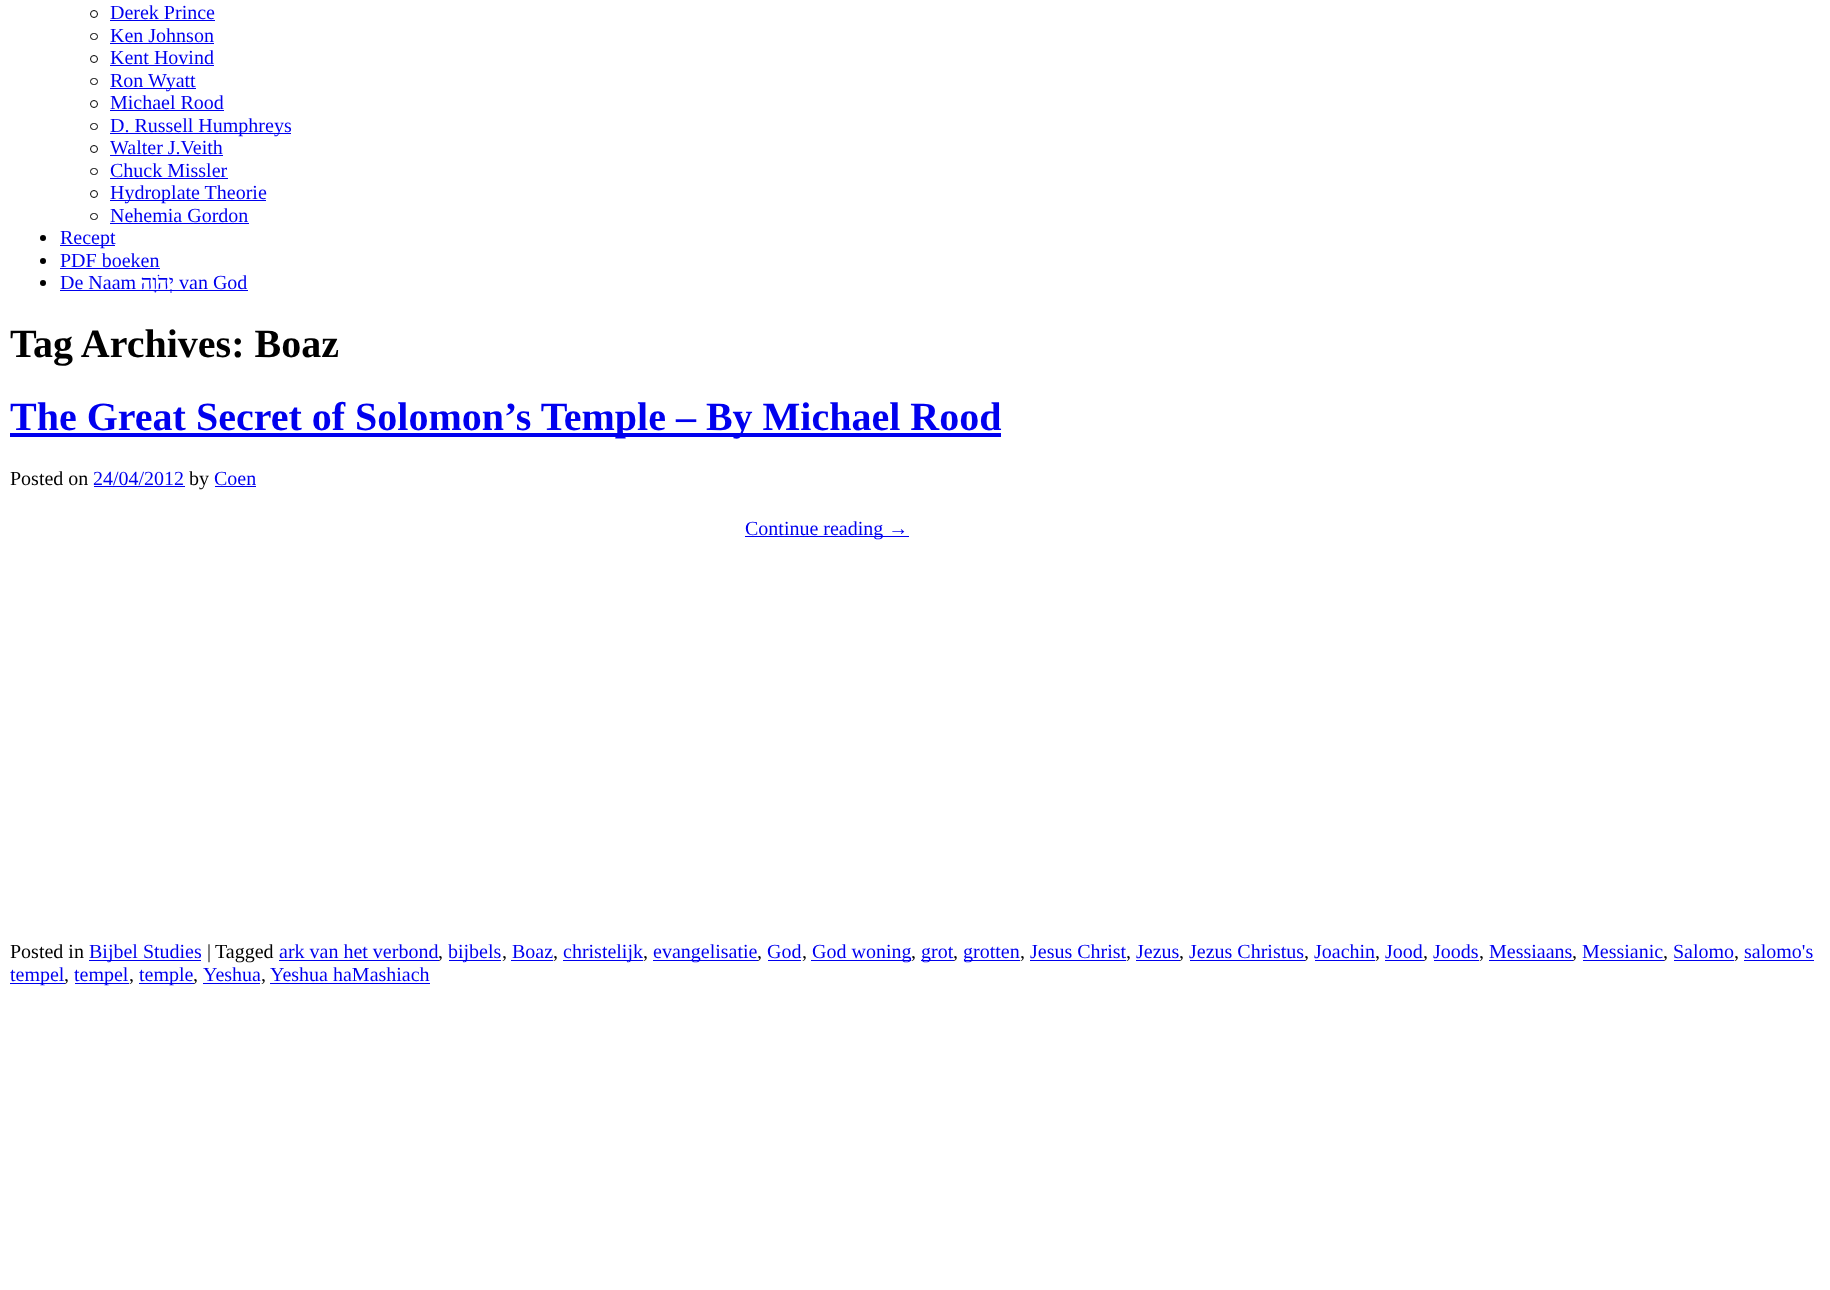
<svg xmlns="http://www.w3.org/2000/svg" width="1830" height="1290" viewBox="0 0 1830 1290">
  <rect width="100%" height="100%" fill="#fff"/>
  <circle cx="94" cy="14" r="3.5" fill="none" stroke="#000"/>
  <path d="M110 20h105v1H110z" fill="#00e"/>
  <rect x="90.5" y="33.5" width="7" height="6" rx="3" fill="none" stroke="#000"/>
  <path d="M110 43h104v1H110z" fill="#00e"/>
  <circle cx="94" cy="59" r="3.5" fill="none" stroke="#000"/>
  <path d="M110 65h104v1H110z" fill="#00e"/>
  <rect x="90.5" y="78.5" width="7" height="6" rx="3" fill="none" stroke="#000"/>
  <path d="M110 88h86v1H110z" fill="#00e"/>
  <circle cx="94" cy="104" r="3.5" fill="none" stroke="#000"/>
  <path d="M110 110h114v1H110z" fill="#00e"/>
  <rect x="90.5" y="123.5" width="7" height="6" rx="3" fill="none" stroke="#000"/>
  <path d="M110 133h181v1H110z" fill="#00e"/>
  <circle cx="94" cy="149" r="3.5" fill="none" stroke="#000"/>
  <path d="M110 155h113v1H110z" fill="#00e"/>
  <rect x="90.5" y="168.5" width="7" height="6" rx="3" fill="none" stroke="#000"/>
  <path d="M110 178h118v1H110z" fill="#00e"/>
  <circle cx="94" cy="194" r="3.5" fill="none" stroke="#000"/>
  <path d="M110 200h156v1H110z" fill="#00e"/>
  <rect x="90.5" y="213.5" width="7" height="6" rx="3" fill="none" stroke="#000"/>
  <path d="M110 223h139v1H110z" fill="#00e"/>
  <circle cx="43" cy="238" r="3" fill="#000"/>
  <path d="M60 245h55v1H60z" fill="#00e"/>
  <circle cx="43" cy="261" r="3" fill="#000"/>
  <path d="M60 268h100v1H60z" fill="#00e"/>
  <circle cx="43" cy="283" r="3" fill="#000"/>
  <path d="M60 290h188v1H60z" fill="#00e"/>
  <path d="M10 433h991v4H10z" fill="#00e"/>
  <path d="M94 486h91v1H94z" fill="#00e"/>
  <path d="M215 486h41v1H215z" fill="#00e"/>
  <path d="M745 536h164v1H745z" fill="#00e"/>
  <path d="M89 960h112v1H89z" fill="#00e"/>
  <path d="M279 960h160v1H279z" fill="#00e"/>
  <path d="M449 960h52v1H449z" fill="#00e"/>
  <path d="M511 960h42v1H511z" fill="#00e"/>
  <path d="M563 960h80v1H563z" fill="#00e"/>
  <path d="M653 960h105v1H653z" fill="#00e"/>
  <path d="M768 960h33v1H768z" fill="#00e"/>
  <path d="M811 960h100v1H811z" fill="#00e"/>
  <path d="M921 960h33v1H921z" fill="#00e"/>
  <path d="M964 960h56v1H964z" fill="#00e"/>
  <path d="M1030 960h96v1H1030z" fill="#00e"/>
  <path d="M1136 960h44v1H1136z" fill="#00e"/>
  <path d="M1190 960h115v1H1190z" fill="#00e"/>
  <path d="M1315 960h60v1H1315z" fill="#00e"/>
  <path d="M1385 960h39v1H1385z" fill="#00e"/>
  <path d="M1434 960h45v1H1434z" fill="#00e"/>
  <path d="M1489 960h84v1H1489z" fill="#00e"/>
  <path d="M1583 960h81v1H1583z" fill="#00e"/>
  <path d="M1674 960h60v1H1674z" fill="#00e"/>
  <path d="M1744 960h70v1H1744z" fill="#00e"/>
  <path d="M10 983h55v1H10z" fill="#00e"/>
  <path d="M75 983h54v1H75z" fill="#00e"/>
  <path d="M139 983h55v1H139z" fill="#00e"/>
  <path d="M203 983h57v1H203z" fill="#00e"/>
  <path d="M270 983h160v1H270z" fill="#00e"/>
  <g font-family="Liberation Serif" font-size="20" fill="#00e">
    <text x="110" y="19">Derek Prince</text>
    <text x="110" y="42">Ken Johnson</text>
    <text x="110" y="64">Kent Hovind</text>
    <text x="110" y="87">Ron Wyatt</text>
    <text x="110" y="109">Michael Rood</text>
    <text x="110" y="132">D. Russell Humphreys</text>
    <text x="110" y="154">Walter J.Veith</text>
    <text x="110" y="177">Chuck Missler</text>
    <text x="110" y="199">Hydroplate Theorie</text>
    <text x="110" y="222">Nehemia Gordon</text>
    <text x="60" y="244">Recept</text>
    <text x="60" y="267">PDF boeken</text>
    <text x="60" y="289">De Naam</text>
  </g>
  <text x="174" y="289" font-family="Liberation Serif" font-size="20" direction="rtl" fill="#00e">יְהֹוָה</text>
  <text x="179" y="289" font-family="Liberation Serif" font-size="20" fill="#00e">van God</text>
  <text x="10" y="357" font-family="Liberation Serif" font-size="40" font-weight="bold" fill="#000">Tag Archives: Boaz</text>
  <text x="10" y="430" font-family="Liberation Serif" font-size="40" font-weight="bold" fill="#00e">The Great Secret of Solomon’s Temple – By Michael Rood</text>
  <text x="10" y="485" font-family="Liberation Serif" font-size="20" fill="#000">Posted on</text>
  <text x="93" y="485" font-family="Liberation Serif" font-size="20" fill="#00e">24/04/2012</text>
  <text x="189" y="485" font-family="Liberation Serif" font-size="20" fill="#000">by</text>
  <g font-family="Liberation Serif" font-size="20" fill="#00e">
    <text x="214" y="485">Coen</text>
    <text x="745" y="535">Continue reading →</text>
  </g>
  <text x="10" y="958" font-family="Liberation Serif" font-size="20" fill="#000">Posted in</text>
  <text x="89" y="958" font-family="Liberation Serif" font-size="20" fill="#00e">Bijbel Studies</text>
  <g font-family="Liberation Serif" font-size="20" fill="#000">
    <text x="207" y="958">|</text>
    <text x="215" y="958">Tagged</text>
  </g>
  <text x="279" y="958" font-family="Liberation Serif" font-size="20" fill="#00e">ark van het verbond</text>
  <text x="438" y="958" font-family="Liberation Serif" font-size="20" fill="#000">,</text>
  <text x="448" y="958" font-family="Liberation Serif" font-size="20" fill="#00e">bijbels</text>
  <text x="502" y="958" font-family="Liberation Serif" font-size="20" fill="#000">,</text>
  <text x="512" y="958" font-family="Liberation Serif" font-size="20" fill="#00e">Boaz</text>
  <text x="553" y="958" font-family="Liberation Serif" font-size="20" fill="#000">,</text>
  <text x="563" y="958" font-family="Liberation Serif" font-size="20" fill="#00e">christelijk</text>
  <text x="643" y="958" font-family="Liberation Serif" font-size="20" fill="#000">,</text>
  <text x="653" y="958" font-family="Liberation Serif" font-size="20" fill="#00e">evangelisatie</text>
  <text x="757" y="958" font-family="Liberation Serif" font-size="20" fill="#000">,</text>
  <text x="767" y="958" font-family="Liberation Serif" font-size="20" fill="#00e">God</text>
  <text x="802" y="958" font-family="Liberation Serif" font-size="20" fill="#000">,</text>
  <text x="812" y="958" font-family="Liberation Serif" font-size="20" fill="#00e">God woning</text>
  <text x="911" y="958" font-family="Liberation Serif" font-size="20" fill="#000">,</text>
  <text x="921" y="958" font-family="Liberation Serif" font-size="20" fill="#00e">grot</text>
  <text x="953" y="958" font-family="Liberation Serif" font-size="20" fill="#000">,</text>
  <text x="963" y="958" font-family="Liberation Serif" font-size="20" fill="#00e">grotten</text>
  <text x="1020" y="958" font-family="Liberation Serif" font-size="20" fill="#000">,</text>
  <text x="1030" y="958" font-family="Liberation Serif" font-size="20" fill="#00e">Jesus Christ</text>
  <text x="1126" y="958" font-family="Liberation Serif" font-size="20" fill="#000">,</text>
  <text x="1136" y="958" font-family="Liberation Serif" font-size="20" fill="#00e">Jezus</text>
  <text x="1179" y="958" font-family="Liberation Serif" font-size="20" fill="#000">,</text>
  <text x="1189" y="958" font-family="Liberation Serif" font-size="20" fill="#00e">Jezus Christus</text>
  <text x="1304" y="958" font-family="Liberation Serif" font-size="20" fill="#000">,</text>
  <text x="1314" y="958" font-family="Liberation Serif" font-size="20" fill="#00e">Joachin</text>
  <text x="1375" y="958" font-family="Liberation Serif" font-size="20" fill="#000">,</text>
  <text x="1385" y="958" font-family="Liberation Serif" font-size="20" fill="#00e">Jood</text>
  <text x="1423" y="958" font-family="Liberation Serif" font-size="20" fill="#000">,</text>
  <text x="1433" y="958" font-family="Liberation Serif" font-size="20" fill="#00e">Joods</text>
  <text x="1479" y="958" font-family="Liberation Serif" font-size="20" fill="#000">,</text>
  <text x="1489" y="958" font-family="Liberation Serif" font-size="20" fill="#00e">Messiaans</text>
  <text x="1572" y="958" font-family="Liberation Serif" font-size="20" fill="#000">,</text>
  <text x="1582" y="958" font-family="Liberation Serif" font-size="20" fill="#00e">Messianic</text>
  <text x="1663" y="958" font-family="Liberation Serif" font-size="20" fill="#000">,</text>
  <text x="1673" y="958" font-family="Liberation Serif" font-size="20" fill="#00e">Salomo</text>
  <text x="1734" y="958" font-family="Liberation Serif" font-size="20" fill="#000">,</text>
  <g font-family="Liberation Serif" font-size="20" fill="#00e">
    <text x="1744" y="958">salomo's</text>
    <text x="10" y="981">tempel</text>
  </g>
  <text x="64" y="981" font-family="Liberation Serif" font-size="20" fill="#000">,</text>
  <text x="74" y="981" font-family="Liberation Serif" font-size="20" fill="#00e">tempel</text>
  <text x="129" y="981" font-family="Liberation Serif" font-size="20" fill="#000">,</text>
  <text x="139" y="981" font-family="Liberation Serif" font-size="20" fill="#00e">temple</text>
  <text x="193" y="981" font-family="Liberation Serif" font-size="20" fill="#000">,</text>
  <text x="203" y="981" font-family="Liberation Serif" font-size="20" fill="#00e">Yeshua</text>
  <text x="261" y="981" font-family="Liberation Serif" font-size="20" fill="#000">,</text>
  <text x="270" y="981" font-family="Liberation Serif" font-size="20" fill="#00e">Yeshua haMashiach</text>
</svg>
